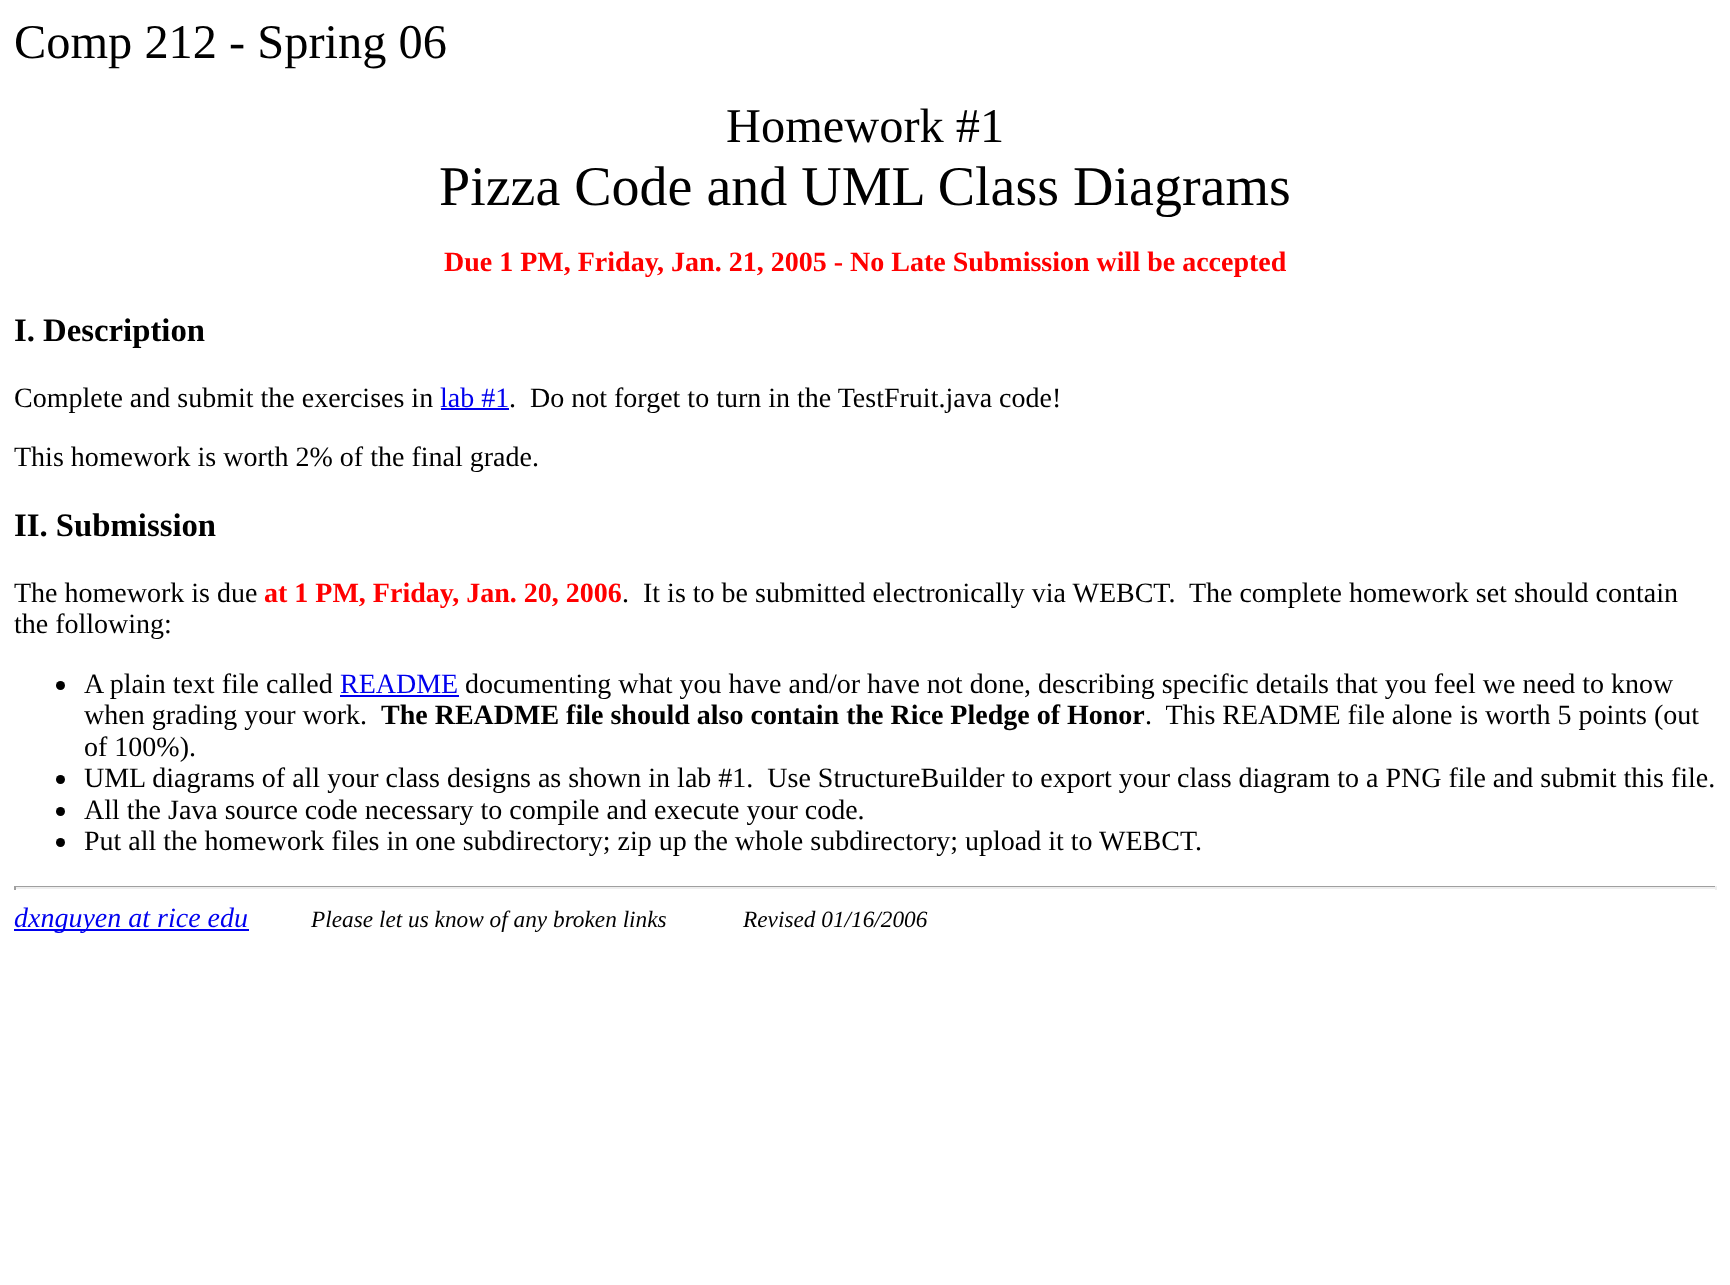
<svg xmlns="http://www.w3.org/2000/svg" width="1730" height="1285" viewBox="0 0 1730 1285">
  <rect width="100%" height="100%" fill="#fff"/>
  <path d="M441 408h68v2H441z" fill="#00e"/>
  <circle cx="60.5" cy="685.5" r="4.5" fill="#000"/>
  <path d="M340 695h119v2H340z" fill="#00e"/>
  <circle cx="60.5" cy="779.5" r="4.5" fill="#000"/>
  <circle cx="60.5" cy="811.5" r="4.5" fill="#000"/>
  <circle cx="60.5" cy="842.5" r="4.5" fill="#000"/>
  <path d="M14 886h1703v1H14z" fill="#9f9f9f"/>
  <path d="M1715 886h2v4H1715z" fill="#eee"/>
  <path d="M14 887h1703v2H14z" fill="#eee"/>
  <path d="M14 886h2v4H14z" fill="#9f9f9f"/>
  <path d="M14 929h235v2H14z" fill="#00e"/>
  <g font-family="Liberation Serif" font-size="48.4" fill="#000">
    <text x="14" y="58">Comp 212 - Spring 06</text>
    <text x="726" y="142">Homework #1</text>
  </g>
  <text x="439" y="205" font-family="Liberation Serif" font-size="56" fill="#000">Pizza Code and UML Class Diagrams</text>
  <text x="444" y="271" font-family="Liberation Serif" font-size="28" font-weight="bold" fill="#f00">Due 1 PM, Friday, Jan. 21, 2005 - No Late Submission will be accepted</text>
  <text x="14" y="341" font-family="Liberation Serif" font-size="32.75" font-weight="bold" fill="#000">I. Description</text>
  <text x="14" y="407" font-family="Liberation Serif" font-size="28" fill="#000">Complete and submit the exercises in</text>
  <text x="440" y="407" font-family="Liberation Serif" font-size="28" fill="#00e">lab #1</text>
  <g font-family="Liberation Serif" font-size="28" fill="#000">
    <text x="509" y="407">.</text>
    <text x="530" y="407">Do not forget to turn in the TestFruit.java code!</text>
    <text x="14" y="466">This homework is worth 2% of the final grade.</text>
  </g>
  <text x="14" y="536" font-family="Liberation Serif" font-size="32.75" font-weight="bold" fill="#000">II. Submission</text>
  <text x="14" y="602" font-family="Liberation Serif" font-size="28" fill="#000">The homework is due</text>
  <text x="264" y="602" font-family="Liberation Serif" font-size="28" font-weight="bold" fill="#f00">at 1 PM, Friday, Jan. 20, 2006</text>
  <g font-family="Liberation Serif" font-size="28" fill="#000">
    <text x="622" y="602">.</text>
    <text x="643" y="602" xml:space="preserve">It is to be submitted electronically via WEBCT.  The complete homework set should contain</text>
    <text x="14" y="633">the following:</text>
    <text x="84" y="693">A plain text file called</text>
  </g>
  <text x="340" y="693" font-family="Liberation Serif" font-size="28" fill="#00e">README</text>
  <g font-family="Liberation Serif" font-size="28" fill="#000">
    <text x="465" y="693">documenting what you have and/or have not done, describing specific details that you feel we need to know</text>
    <text x="84" y="724">when grading your work.</text>
  </g>
  <text x="381" y="724" font-family="Liberation Serif" font-size="28" font-weight="bold" fill="#000">The README file should also contain the Rice Pledge of Honor</text>
  <g font-family="Liberation Serif" font-size="28" fill="#000">
    <text x="1145" y="724" xml:space="preserve">.  This README file alone is worth 5 points (out</text>
    <text x="84" y="756">of 100%).</text>
    <text x="84" y="787" xml:space="preserve">UML diagrams of all your class designs as shown in lab #1.  Use StructureBuilder to export your class diagram to a PNG file and submit this file.</text>
    <text x="84" y="819">All the Java source code necessary to compile and execute your code.</text>
    <text x="84" y="850">Put all the homework files in one subdirectory; zip up the whole subdirectory; upload it to WEBCT.</text>
  </g>
  <text x="14" y="927" font-family="Liberation Serif" font-size="28" font-style="italic" fill="#00e">dxnguyen at rice edu</text>
  <g font-family="Liberation Serif" font-size="23.3" font-style="italic" fill="#000">
    <text x="311" y="927">Please let us know of any broken links</text>
    <text x="743" y="927">Revised 01/16/2006</text>
  </g>
</svg>
